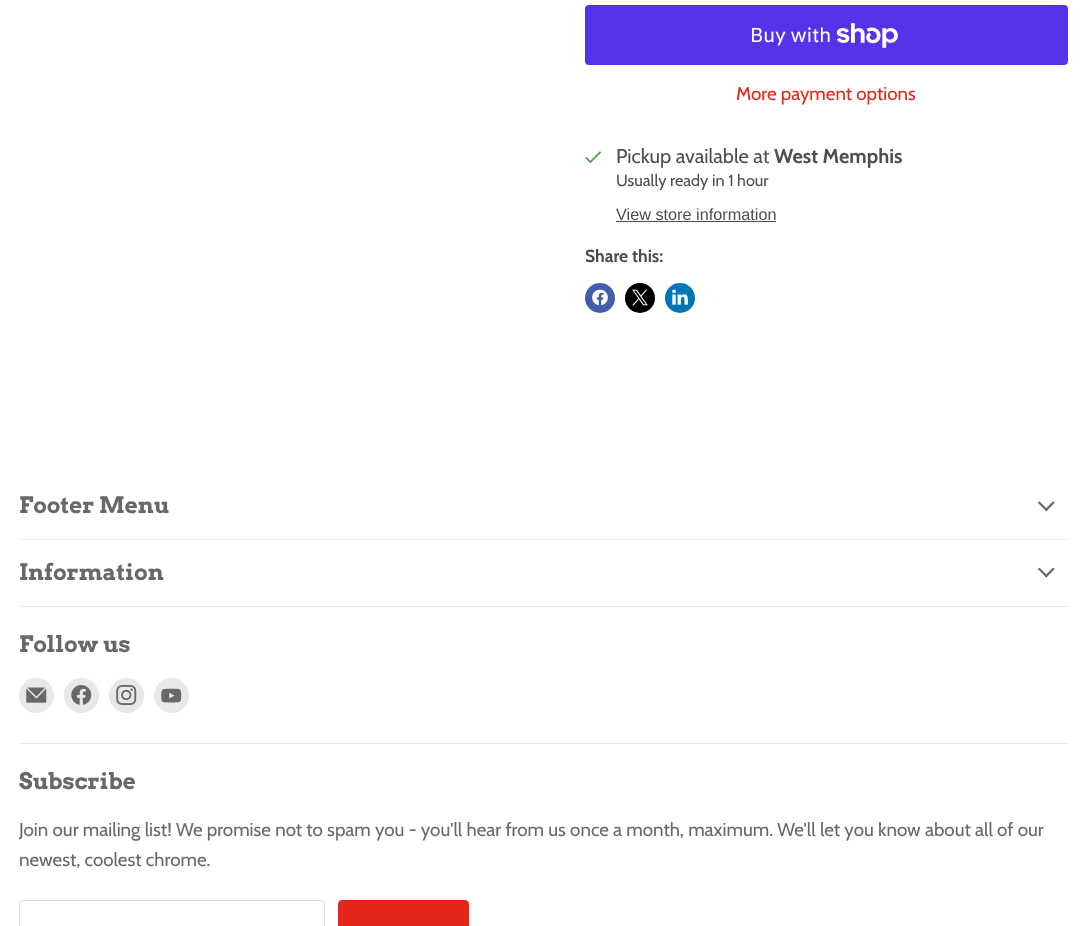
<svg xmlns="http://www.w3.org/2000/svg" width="1086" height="926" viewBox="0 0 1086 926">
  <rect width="100%" height="100%" fill="#fff"/>
  <rect x="585" y="5" width="483" height="60" rx="4" fill="#5433eb"/>
  <image x="836" y="23" width="62" height="25" href="img/1.png"/>
  <image x="585" y="151" width="16" height="13" href="img/2.png"/>
  <path d="M616 221h160v1H616z" fill="#4d4d4d"/>
  <circle cx="600" cy="298" r="15" fill="#425dab"/>
  <image x="592" y="289" width="16" height="17" href="img/3.png"/>
  <circle cx="640" cy="298" r="15" fill="#000"/>
  <image x="632" y="289" width="16" height="17" href="img/4.png"/>
  <circle cx="680" cy="298" r="15" fill="#0077b5"/>
  <image x="672" y="289" width="16" height="16" href="img/5.png"/>
  <path d="M19 539h1049v1H19z" fill="#e8e8e8"/>
  <image x="1038" y="501" width="17" height="10" href="img/6.png"/>
  <path d="M19 606h1049v1H19z" fill="#e8e8e8"/>
  <image x="1038" y="568" width="17" height="10" href="img/7.png"/>
  <path d="M19 743h1049v1H19z" fill="#e8e8e8"/>
  <circle cx="36.5" cy="695.5" r="17.5" fill="#e8e8e8"/>
  <image x="26" y="687" width="21" height="16" href="img/8.png"/>
  <circle cx="81.5" cy="695.5" r="17.5" fill="#e8e8e8"/>
  <image x="71" y="685" width="21" height="20" href="img/9.png"/>
  <circle cx="126.5" cy="695.5" r="17.5" fill="#e8e8e8"/>
  <image x="116" y="685" width="21" height="20" href="img/10.png"/>
  <circle cx="171.5" cy="695.5" r="17.5" fill="#e8e8e8"/>
  <image x="161" y="688" width="21" height="15" href="img/11.png"/>
  <rect x="19.5" y="900.5" width="305" height="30" rx="3.5" fill="none" stroke="#ddd"/>
  <rect x="338.5" y="900.5" width="130" height="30" rx="3.5" fill="#e32619" stroke="#e32619"/>
  <text x="750" y="42" font-family="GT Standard" font-size="20" fill="#fff">Buy with</text>
  <text x="736" y="100" font-family="Cabin" font-size="18.75" fill="#e32619">More payment options</text>
  <text x="616" y="163" font-family="Cabin" font-size="20" fill="#4d4d4d">Pickup available at</text>
  <text x="774" y="163" font-family="Cabin" font-size="20" font-weight="bold" fill="#4d4d4d">West Memphis</text>
  <text x="616" y="186" font-family="Cabin" font-size="16.25" fill="#4d4d4d">Usually ready in 1 hour</text>
  <text x="616" y="220" font-family="Liberation Sans" font-size="16.25" fill="#4d4d4d">View store information</text>
  <text x="585" y="262" font-family="Cabin" font-size="17.5" font-weight="bold" fill="#4d4d4d">Share this:</text>
  <g font-family="Arvo" font-size="22.5" font-weight="bold" fill="#686868">
    <text x="19" y="513">Footer Menu</text>
    <text x="19" y="580">Information</text>
    <text x="19" y="652">Follow us</text>
    <text x="19" y="789">Subscribe</text>
  </g>
  <g font-family="Cabin" font-size="18.75" fill="#686868">
    <text x="19" y="836">Join our mailing list! We promise not to spam you - you'll hear from us once a month, maximum. We'll let you know about all of our</text>
    <text x="19" y="866">newest, coolest chrome.</text>
  </g>
</svg>
